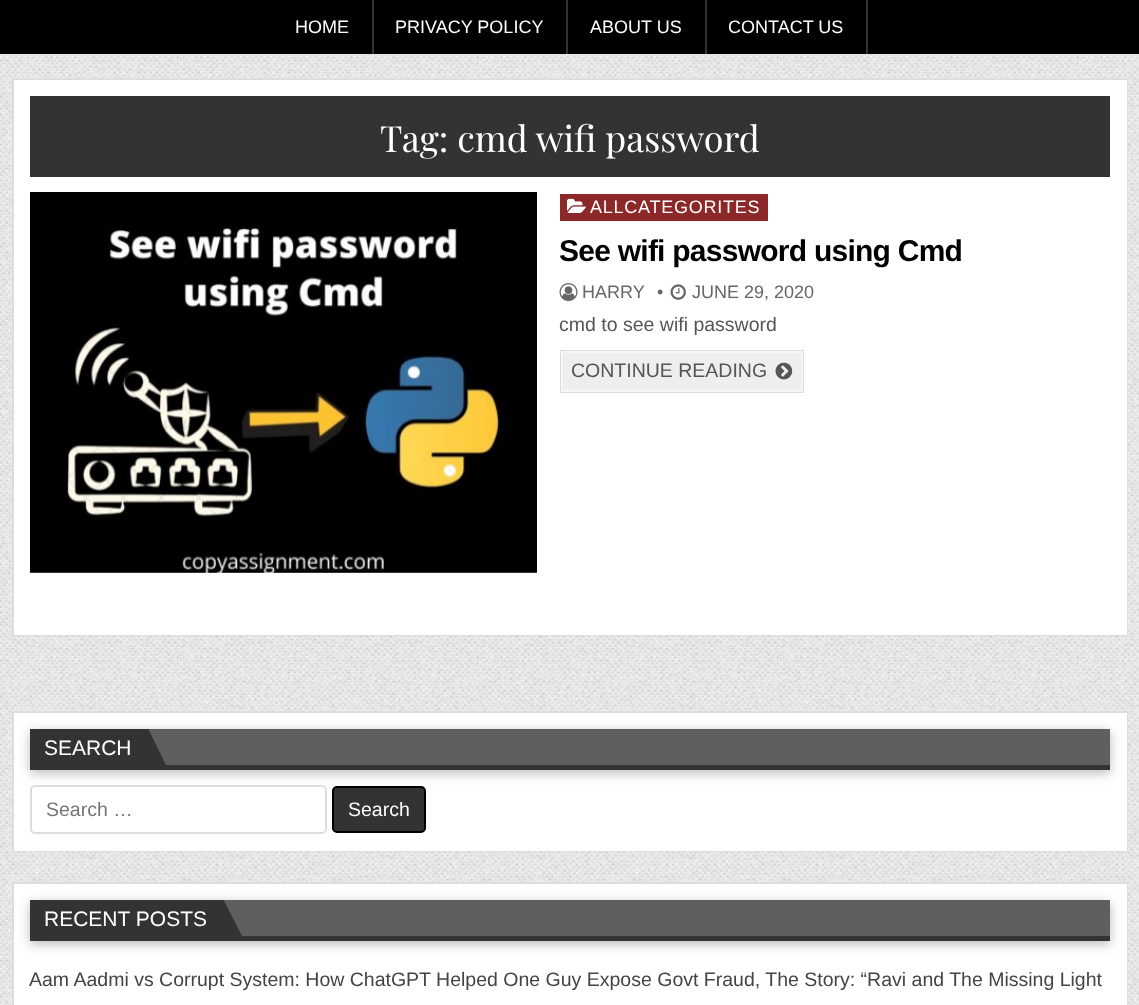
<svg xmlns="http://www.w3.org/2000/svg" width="1139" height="1005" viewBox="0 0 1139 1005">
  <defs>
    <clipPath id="clip1"><path d="M30 729h1080v36H30z"/></clipPath>
    <clipPath id="clip2"><path d="M30 900h1080v36H30z"/></clipPath>
  </defs>
  <rect width="100%" height="100%" fill="#fff"/>
  <image x="0" y="56" width="1139" height="949" href="img/1.png"/>
  <path d="M0 0h1139v54H0z" fill="#000"/>
  <path d="M0 54h1139v2H0z" fill="#e5e5e5"/>
  <path d="M372 0h2v54H372z" fill="#333"/>
  <path d="M566 0h2v54H566z" fill="#333"/>
  <path d="M705 0h2v54H705z" fill="#333"/>
  <path d="M866 0h2v54H866z" fill="#333"/>
  <path d="M16 82h1109v551H16z" fill="#fff"/>
  <path d="M13 79h1114v556H13z" fill="none" stroke="#ddd" stroke-width="2"/>
  <path d="M15 81h1111v553H15z" fill="none" stroke="#fff" stroke-width="2"/>
  <path d="M30 96h1080v81H30z" fill="#333"/>
  <image x="30" y="192" width="507" height="381" href="img/2.png"/>
  <path d="M560 194h208v27H560z" fill="#8c2828"/>
  <image x="567" y="198" width="19" height="15" href="img/3.png"/>
  <image x="559" y="283" width="19" height="19" href="img/4.png"/>
  <image x="670" y="284" width="16" height="16" href="img/5.png"/>
  <path d="M563 353h238v37H563z" fill="#eee"/>
  <path d="M561 351h242v41H561z" fill="none" stroke="#ddd" stroke-width="2"/>
  <path d="M562 352h240v39H562z" fill="none" stroke="#f6f6f6" stroke-width="2"/>
  <image x="775" y="362" width="18" height="18" href="img/6.png"/>
  <path d="M16 715h1109v134H16z" fill="#fff"/>
  <path d="M13 712h1114v139H13z" fill="none" stroke="#ddd" stroke-width="2"/>
  <path d="M15 714h1111v136H15z" fill="none" stroke="#fff" stroke-width="2"/>
  <path d="M30 732h1080v41H30z" fill="#0000001f" filter="blur(7.5px)"/>
  <path d="M30 732h1080v41H30z" fill="#00000029" filter="blur(4px)"/>
  <path d="M148 729h962v36H148z" fill="#5f5f5f"/>
  <path d="M30 765h1080v5H30z" fill="#333"/>
  <path d="M30 729h114v36H30z" fill="#333"/>
  <g clip-path="url(#clip1)">
    <path d="M144 765V720L166 765Z" fill="#333"/>
  </g>
  <rect x="31" y="786" width="295" height="47" rx="4" fill="none" stroke="#ddd" stroke-width="2"/>
  <rect x="333" y="787" width="92" height="45" rx="4" fill="#333" stroke="#000" stroke-width="2"/>
  <path d="M16 886h1109v119H16z" fill="#fff"/>
  <path d="M13 883h1114v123H13z" fill="none" stroke="#ddd" stroke-width="2"/>
  <path d="M15 885h1111v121H15z" fill="none" stroke="#fff" stroke-width="2"/>
  <path d="M30 903h1080v41H30z" fill="#0000001f" filter="blur(7.5px)"/>
  <path d="M30 903h1080v41H30z" fill="#00000029" filter="blur(4px)"/>
  <path d="M223 900h887v36H223z" fill="#5f5f5f"/>
  <path d="M30 936h1080v5H30z" fill="#333"/>
  <path d="M30 900h189v36H30z" fill="#333"/>
  <g clip-path="url(#clip2)">
    <path d="M219 936V891L242 936Z" fill="#333"/>
  </g>
  <g font-family="Liberation Sans" font-size="18" fill="#fff">
    <text x="295" y="33">HOME</text>
    <text x="395" y="33">PRIVACY POLICY</text>
    <text x="590" y="33">ABOUT US</text>
    <text x="728" y="33">CONTACT US</text>
  </g>
  <text x="380" y="152" font-family="Playfair Display" font-size="36" fill="#fff">Tag: cmd wifi password</text>
  <text x="590" y="213" font-family="Liberation Sans" font-size="18" letter-spacing="0.75" fill="#fff">ALLCATEGORITES</text>
  <text x="559" y="261" font-family="Liberation Sans" font-size="30" font-weight="bold" letter-spacing="-0.75" fill="#000">See wifi password using Cmd</text>
  <g font-family="Liberation Sans" font-size="18" fill="#666">
    <text x="582" y="298">HARRY</text>
    <text x="657" y="298">•</text>
    <text x="692" y="298">JUNE 29, 2020</text>
  </g>
  <g font-family="Liberation Sans" font-size="19.5" fill="#555">
    <text x="559" y="331">cmd to see wifi password</text>
    <text x="571" y="377">CONTINUE READING</text>
  </g>
  <text x="44" y="755" font-family="Liberation Sans" font-size="21" fill="#fff">SEARCH</text>
  <text x="46" y="816" font-family="Liberation Sans" font-size="19.5" fill="#757575">Search …</text>
  <text x="348" y="816" font-family="Liberation Sans" font-size="19.5" fill="#fff">Search</text>
  <text x="44" y="926" font-family="Liberation Sans" font-size="21" fill="#fff">RECENT POSTS</text>
  <text x="29" y="986" font-family="Liberation Sans" font-size="19.5" fill="#444">Aam Aadmi vs Corrupt System: How ChatGPT Helped One Guy Expose Govt Fraud, The Story: “Ravi and The Missing Light</text>
</svg>
